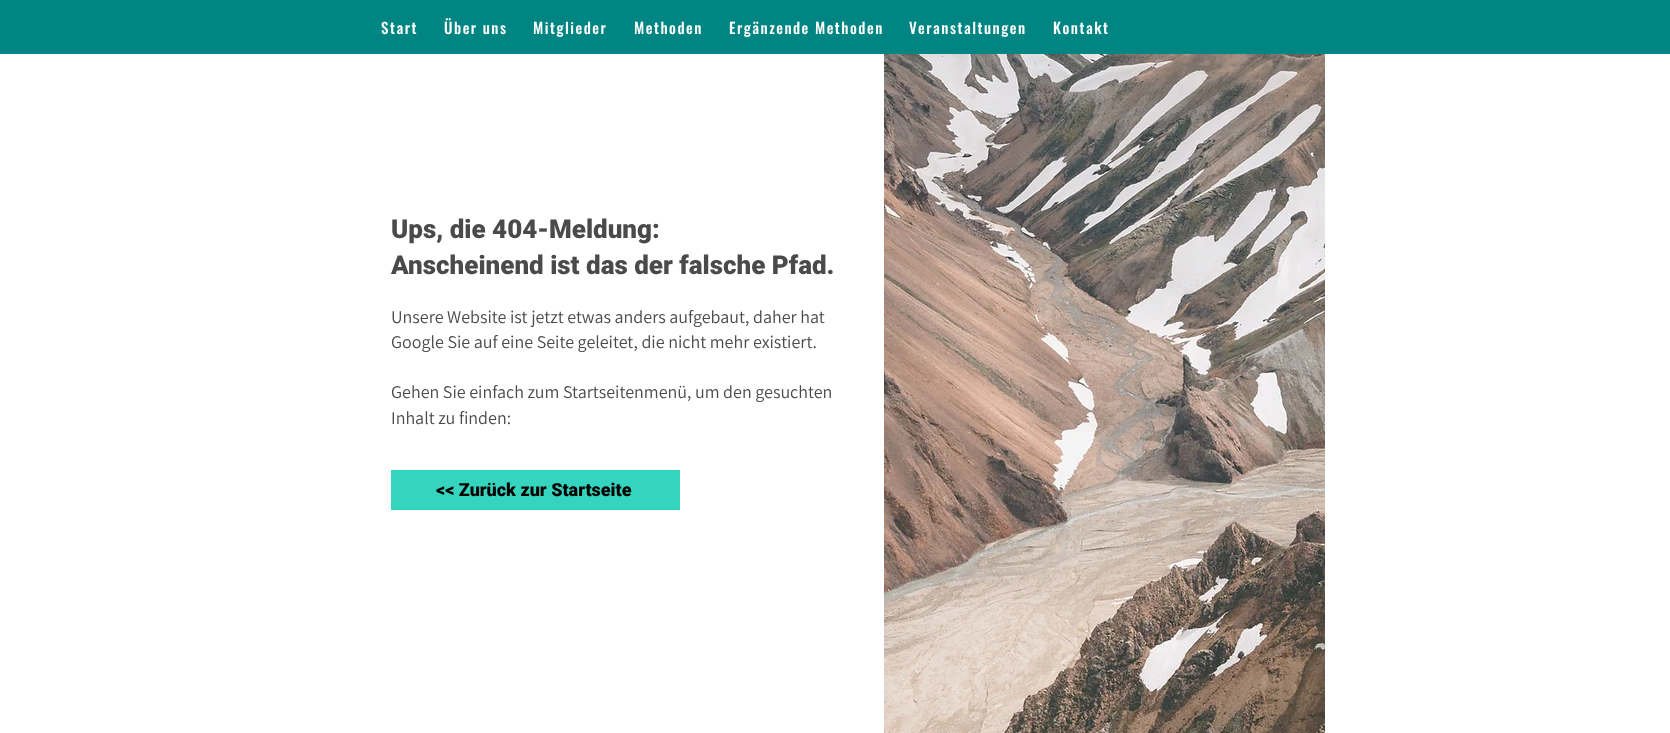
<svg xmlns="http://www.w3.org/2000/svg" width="1670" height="733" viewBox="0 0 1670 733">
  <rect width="100%" height="100%" fill="#fff"/>
  <path d="M0 0h1670v54H0z" fill="#008583"/>
  <path d="M391 470h289v40H391z" fill="#35d4be"/>
  <image x="884" y="54" width="441" height="679" href="img/1.png"/>
  <g font-family="Oswald" font-size="15" font-weight="500" letter-spacing="1.5" fill="#fff">
    <text x="381" y="34">Start</text>
    <text x="444" y="34">Über uns</text>
    <text x="533" y="34">Mitglieder</text>
    <text x="634" y="34">Methoden</text>
    <text x="729" y="34">Ergänzende Methoden</text>
    <text x="909" y="34">Veranstaltungen</text>
    <text x="1053" y="34">Kontakt</text>
  </g>
  <g font-family="Roboto" font-size="26" font-weight="900" fill="#4a4a4a">
    <text x="391" y="238">Ups, die 404-Meldung:</text>
    <text x="391" y="274">Anscheinend ist das der falsche Pfad.</text>
  </g>
  <g font-family="Assistant" font-size="18" fill="#4a4a4a">
    <text x="391" y="323">Unsere Website ist jetzt etwas anders aufgebaut, daher hat</text>
    <text x="391" y="348">Google Sie auf eine Seite geleitet, die nicht mehr existiert.</text>
    <text x="391" y="398">Gehen Sie einfach zum Startseitenmenü, um den gesuchten</text>
    <text x="391" y="424">Inhalt zu finden:</text>
  </g>
  <text x="436" y="496" font-family="Roboto" font-size="18" font-weight="900" fill="#000">&lt;&lt; Zurück zur Startseite</text>
</svg>
